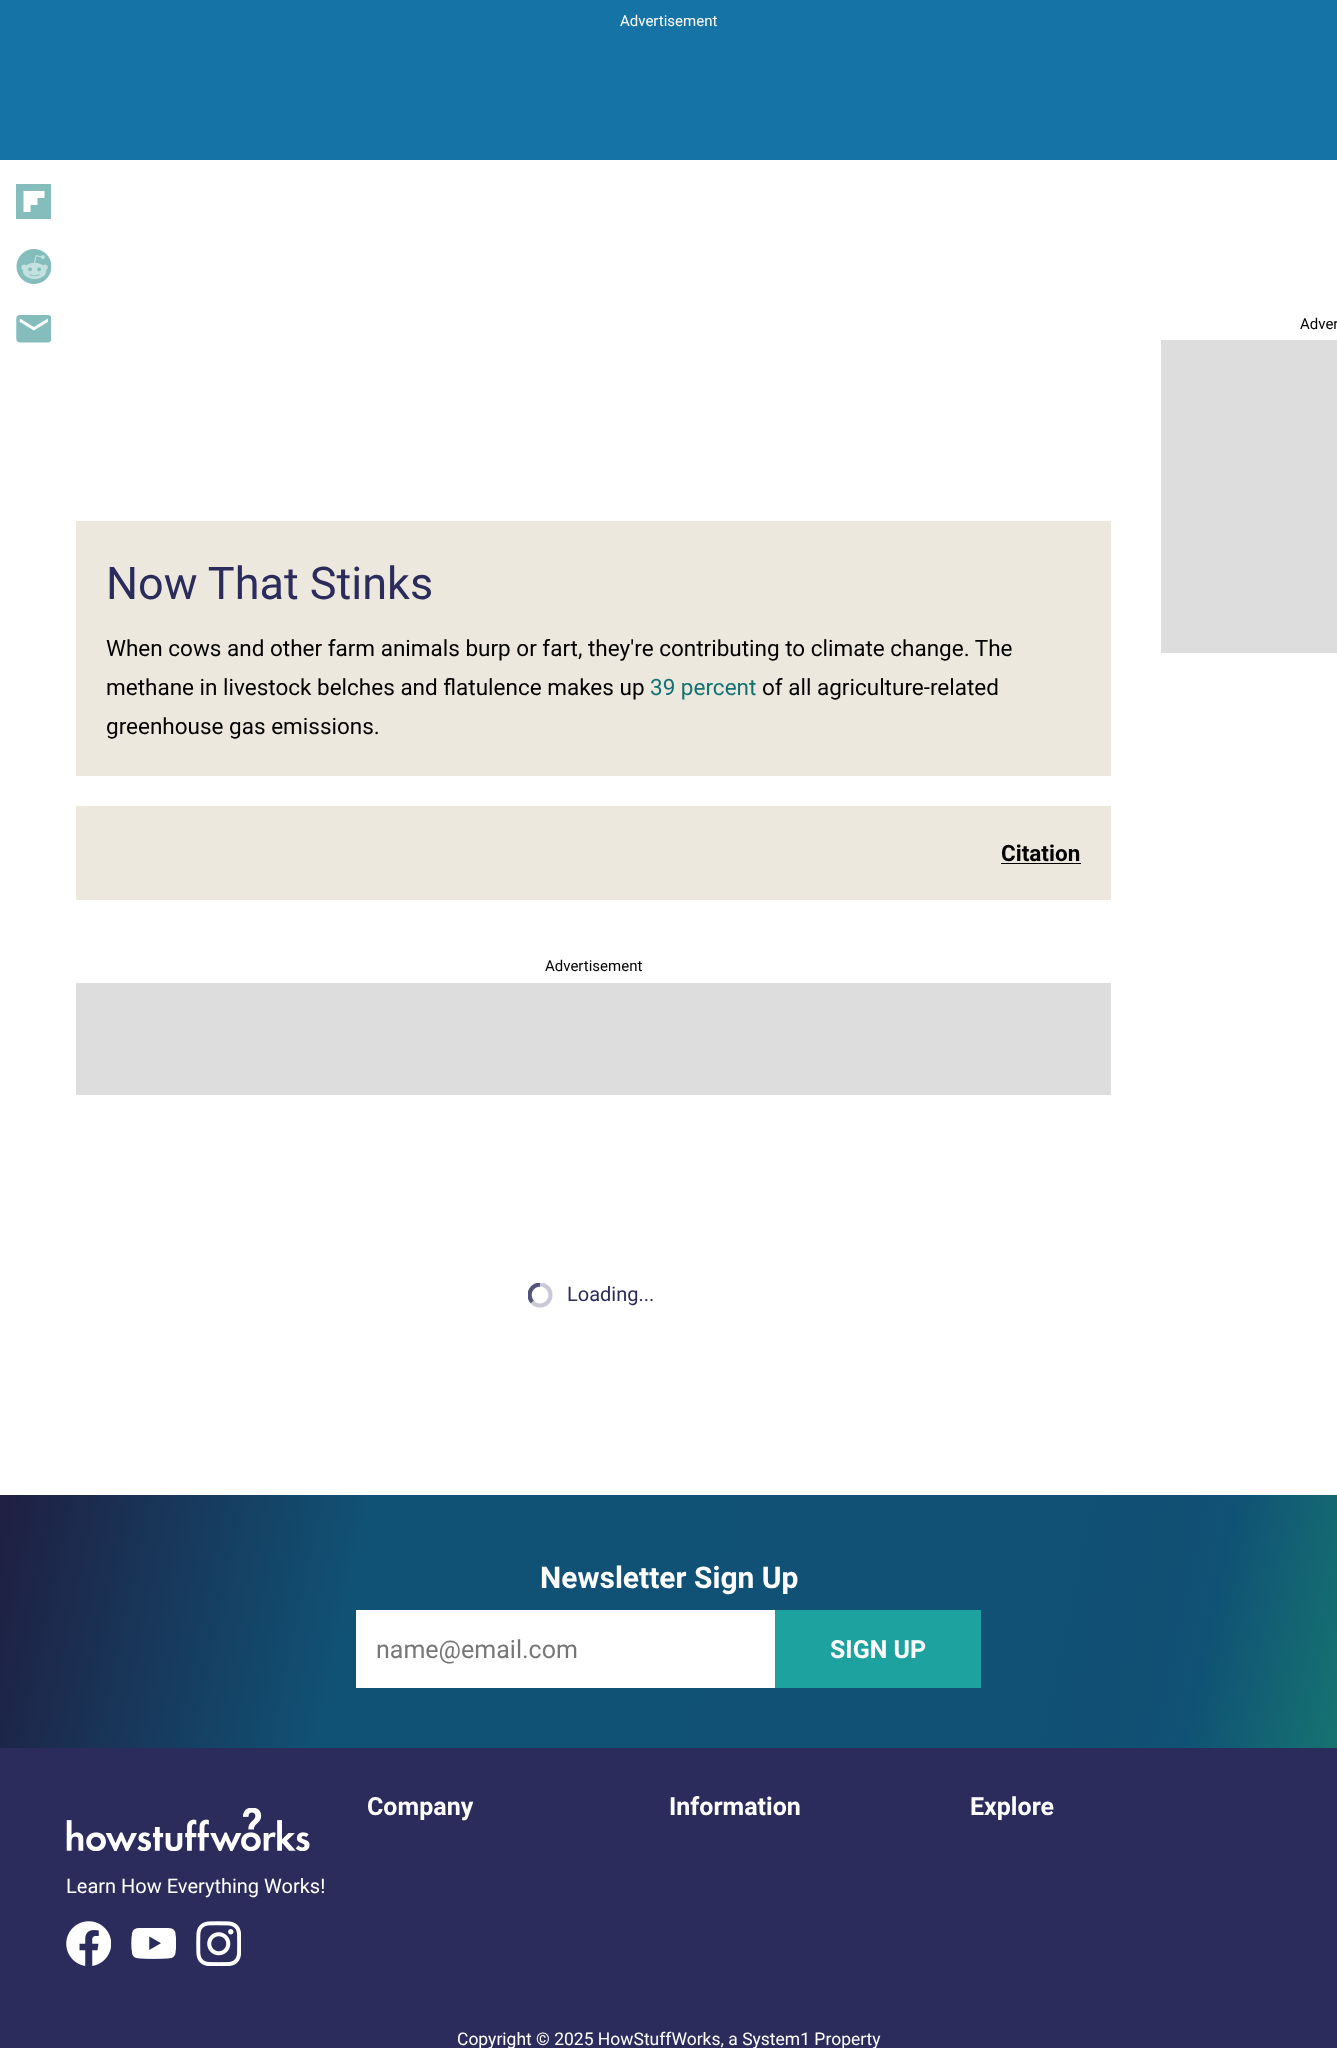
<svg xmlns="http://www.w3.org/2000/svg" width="1337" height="2048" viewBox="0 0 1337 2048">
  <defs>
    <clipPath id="clip1"><path d="M16 184h35v35H16z"/></clipPath>
    <linearGradient id="g1" gradientUnits="userSpaceOnUse" x1="3.2" y1="1480" x2="1334" y2="1763"><stop offset="0" stop-color="#1f1f42"/><stop offset="0.27" stop-color="#105275"/><stop offset="0.76" stop-color="#105175"/><stop offset="0.85" stop-color="#114f73"/><stop offset="0.89" stop-color="#105275"/><stop offset="1" stop-color="#167371"/></linearGradient>
  </defs>
  <rect width="100%" height="100%" fill="#fff"/>
  <path d="M0 0h1337v160H0z" fill="#1573a6"/>
  <path d="M1161 340h176v313H1161z" fill="#ddd"/>
  <g clip-path="url(#clip1)">
    <path d="M16 184V219H51.5V184ZM44.5 198H37.5V205H30.5V212H23.5V191H44.5Z" fill="#84bdbc"/>
  </g>
  <image x="16" y="249" width="35" height="35" href="img/1.png"/>
  <image x="16" y="315" width="35" height="28" href="img/2.png"/>
  <path d="M76 521h1035v255H76z" fill="#ede8de"/>
  <path d="M76 806h1035v94H76z" fill="#ede8de"/>
  <path d="M1001 863h80v1H1001z" fill="#000"/>
  <path d="M76 983h1035v112H76z" fill="#ddd"/>
  <image x="528" y="1283" width="25" height="25" href="img/3.png"/>
  <path d="M0 1495h1337v253H0z" fill="url(#g1)"/>
  <path d="M356 1610h419v78H356z" fill="#fff"/>
  <path d="M775 1610h206v78H775z" fill="#1ea2a0"/>
  <path d="M0 1748h1337v300H0z" fill="#2b2b5c"/>
  <image x="66" y="1808" width="244" height="43" href="img/4.png"/>
  <image x="66" y="1921" width="45" height="45" href="img/5.png"/>
  <image x="131" y="1928" width="45" height="31" href="img/6.png"/>
  <image x="196" y="1921" width="45" height="45" href="img/7.png"/>
  <text x="620" y="26" font-family="Roboto" font-size="15" fill="#fff">Advertisement</text>
  <text x="1300" y="329" font-family="Roboto" font-size="15" fill="#000">Adver</text>
  <text x="106" y="599" font-family="Roboto" font-size="45" fill="#2b2b5c">Now That Stinks</text>
  <g font-family="Roboto" font-size="22.5" fill="#000">
    <text x="106" y="656">When cows and other farm animals burp or fart, they're contributing to climate change. The</text>
    <text x="106" y="695">methane in livestock belches and flatulence makes up</text>
  </g>
  <text x="650" y="695" font-family="Roboto" font-size="22.5" fill="#127271">39 percent</text>
  <g font-family="Roboto" font-size="22.5" fill="#000">
    <text x="762" y="695">of all agriculture-related</text>
    <text x="106" y="734">greenhouse gas emissions.</text>
  </g>
  <text x="1001" y="861" font-family="Roboto" font-size="22.5" font-weight="bold" fill="#000">Citation</text>
  <text x="545" y="971" font-family="Roboto" font-size="15" fill="#000">Advertisement</text>
  <text x="567" y="1301" font-family="Roboto" font-size="20" fill="#2b2b5c">Loading...</text>
  <text x="540" y="1588" font-family="Roboto" font-size="30" font-weight="bold" fill="#fff">Newsletter Sign Up</text>
  <text x="376" y="1658" font-family="Roboto" font-size="25" fill="#777">name@email.com</text>
  <g font-family="Roboto" font-size="25" font-weight="bold" fill="#fff">
    <text x="830" y="1658">SIGN UP</text>
    <text x="367" y="1815">Company</text>
    <text x="669" y="1815">Information</text>
    <text x="970" y="1815">Explore</text>
  </g>
  <text x="66" y="1893" font-family="Roboto" font-size="20" fill="#fff">Learn How Everything Works!</text>
  <text x="457" y="2045" font-family="Roboto" font-size="17.5" fill="#fff">Copyright © 2025 HowStuffWorks, a System1 Property</text>
</svg>
